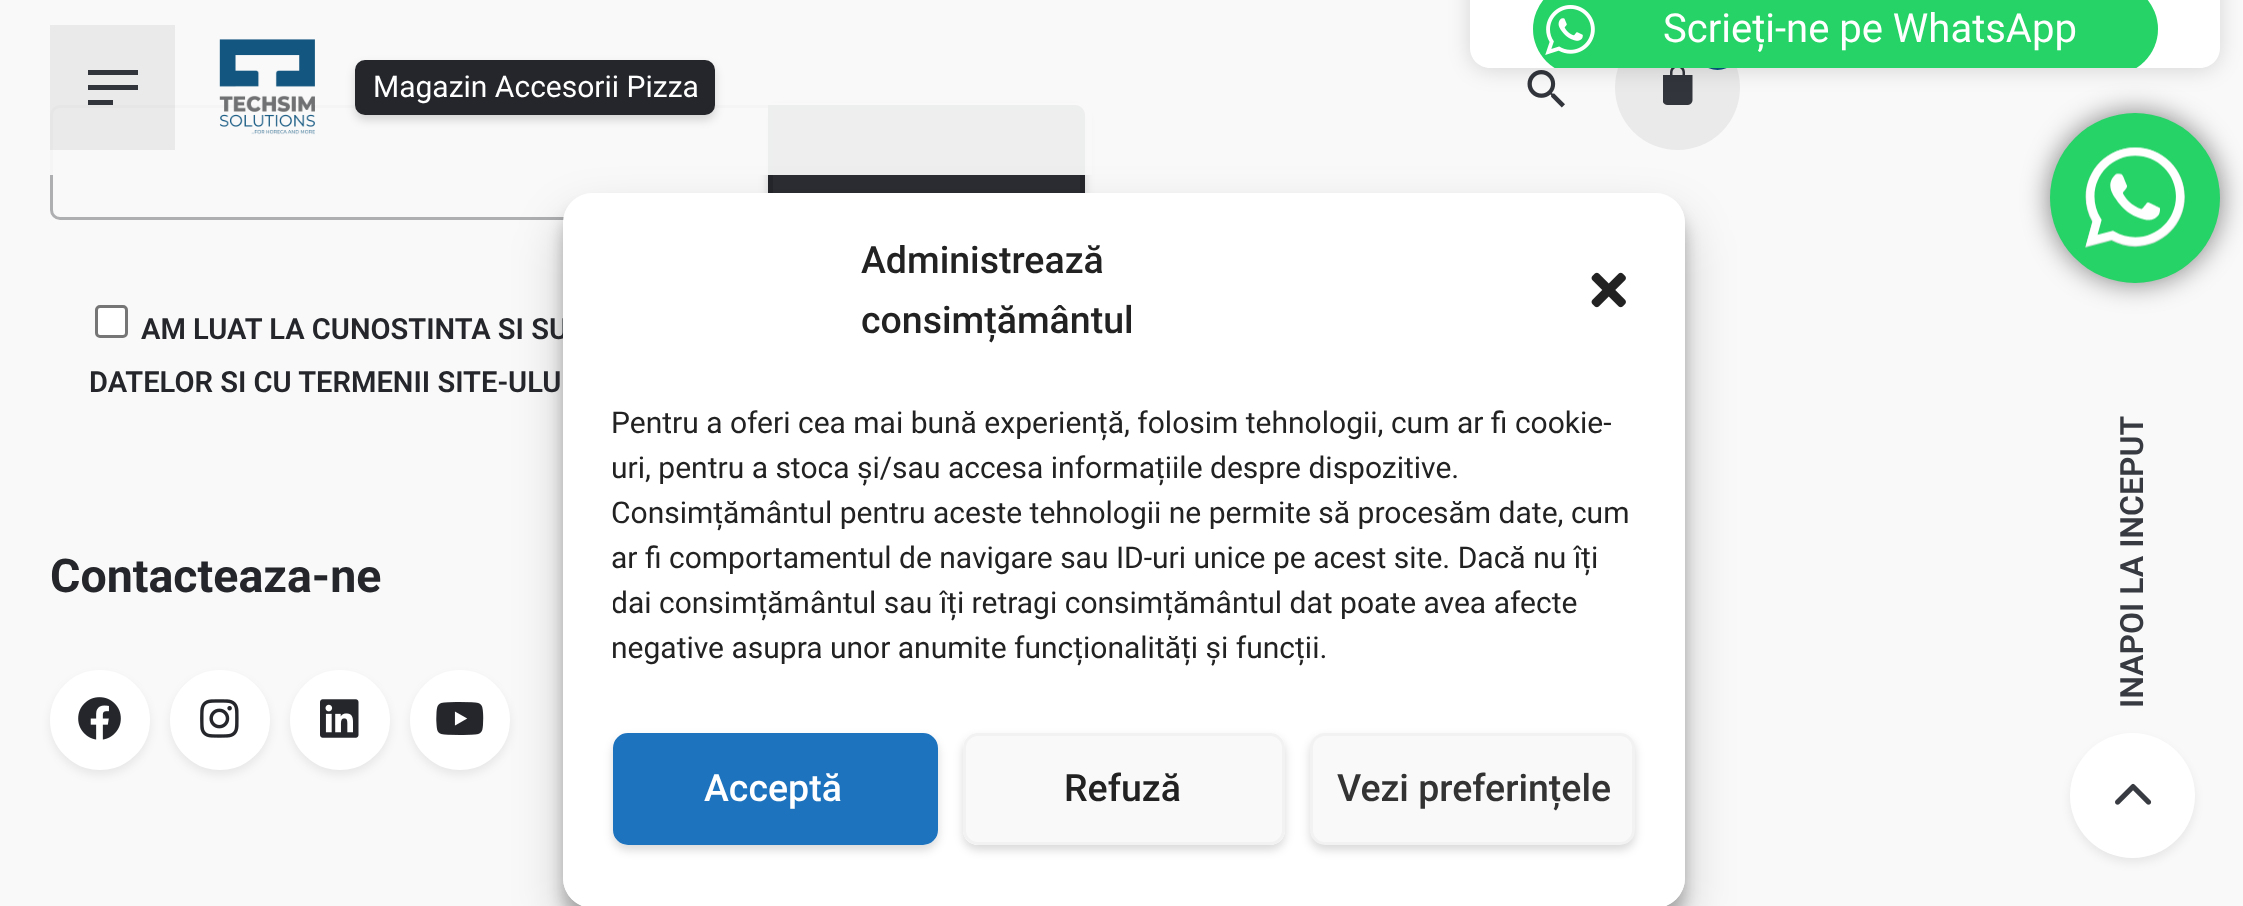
<svg xmlns="http://www.w3.org/2000/svg" width="2243" height="906" viewBox="0 0 2243 906">
  <defs>
    <clipPath id="clip1"><rect x="1470" y="-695" width="750" height="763" rx="20"/></clipPath>
    <clipPath id="clip2"><path d="M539 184H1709V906H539ZM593 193H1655C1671.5 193 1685 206.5 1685 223V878C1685 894.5 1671.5 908 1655 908H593C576.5 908 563 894.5 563 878V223C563 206.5 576.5 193 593 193Z" clip-rule="evenodd"/></clipPath>
    <clipPath id="clip3"><path d="M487 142H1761V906H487ZM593 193H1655C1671.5 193 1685 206.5 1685 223V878C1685 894.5 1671.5 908 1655 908H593C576.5 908 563 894.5 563 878V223C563 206.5 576.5 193 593 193Z" clip-rule="evenodd"/></clipPath>
    <clipPath id="clip4"><path d="M613 400h1022v283H613z"/></clipPath>
    <clipPath id="clip5"><path d="M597 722H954V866H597ZM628 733H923C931.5 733 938 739.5 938 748V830C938 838.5 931.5 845 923 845H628C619.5 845 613 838.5 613 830V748C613 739.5 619.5 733 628 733Z" clip-rule="evenodd"/></clipPath>
    <clipPath id="clip6"><path d="M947 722H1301V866H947ZM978 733H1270C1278.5 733 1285 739.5 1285 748V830C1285 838.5 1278.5 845 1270 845H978C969.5 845 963 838.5 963 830V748C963 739.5 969.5 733 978 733Z" clip-rule="evenodd"/></clipPath>
  </defs>
  <rect width="100%" height="100%" fill="#f9f9f9"/>
  <image x="1527" y="70" width="38" height="38" href="img/4.png"/>
  <circle cx="1677.5" cy="87.5" r="62.5" fill="#eaeaea"/>
  <circle cx="1717.5" cy="47.5" r="22.5" fill="#0a557f"/>
  <image x="1663" y="68" width="30" height="37" href="img/5.png"/>
  <rect x="1470" y="-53" width="750" height="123" rx="20" fill="#00000024" filter="blur(11px)"/>
  <path d="M1470-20H2220V48C2220 59 2211 68 2200 68H1490C1479 68 1470 59 1470 48Z" fill="#fff"/>
  <rect x="2050" y="113" width="170" height="170" rx="85" fill="#00000080" filter="blur(14px)"/>
  <g clip-path="url(#clip1)">
    <rect x="1533" y="-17" width="625" height="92" rx="46" fill="#25d366"/>
  </g>
  <image x="1545" y="5" width="50" height="50" href="img/1.png"/>
  <circle cx="2135" cy="198" r="85" fill="#25d366"/>
  <image x="2085" y="147" width="100" height="101" href="img/2.png"/>
  <rect x="51.5" y="106.5" width="1032" height="112" rx="8.5" fill="none" stroke="#aeafb1" stroke-width="3"/>
  <rect x="768" y="110" width="317" height="110" rx="10" fill="#00000026" filter="blur(5px)"/>
  <path d="M770.5 107.5H1075C1079 107.5 1082.5 111 1082.5 115V205C1082.5 209 1079 212.5 1075 212.5H770.5Z" fill="#2b2d32" stroke="#24262b" stroke-width="5"/>
  <path d="M50 103h1042v72H50z" fill="#f9f9f9f2"/>
  <path d="M50 25h125v125H50z" fill="#0000000f"/>
  <path d="M88 70h50v5H88z" fill="#32353c"/>
  <path d="M88 85h50v5H88z" fill="#32353c"/>
  <path d="M88 100h25v5H88z" fill="#32353c"/>
  <image x="219" y="39" width="96" height="96" href="img/3.png"/>
  <rect x="355" y="65" width="360" height="55" rx="10" fill="#00000026" filter="blur(5px)"/>
  <rect x="357.5" y="62.5" width="355" height="50" rx="7.5" fill="#24262b" stroke="#24262b" stroke-width="5"/>
  <rect x="96.5" y="306.5" width="30" height="30" rx="3.5" fill="#fff" stroke="#767676" stroke-width="3"/>
  <rect x="50" y="675" width="100" height="100" rx="50" fill="#00000012" filter="blur(5px)"/>
  <circle cx="100" cy="720" r="47.5" fill="#fff" stroke="#fff" stroke-width="5"/>
  <image x="78" y="697" width="43" height="43" href="img/6.png"/>
  <rect x="170" y="675" width="100" height="100" rx="50" fill="#00000012" filter="blur(5px)"/>
  <circle cx="220" cy="720" r="47.5" fill="#fff" stroke="#fff" stroke-width="5"/>
  <image x="200" y="699" width="39" height="39" href="img/7.png"/>
  <rect x="290" y="675" width="100" height="100" rx="50" fill="#00000012" filter="blur(5px)"/>
  <circle cx="340" cy="720" r="47.5" fill="#fff" stroke="#fff" stroke-width="5"/>
  <image x="320" y="699" width="39" height="39" href="img/8.png"/>
  <rect x="410" y="675" width="100" height="100" rx="50" fill="#00000012" filter="blur(5px)"/>
  <circle cx="460" cy="720" r="47.5" fill="#fff" stroke="#fff" stroke-width="5"/>
  <image x="436" y="702" width="48" height="33" href="img/9.png"/>
  <g clip-path="url(#clip2)">
    <rect x="563" y="208" width="1122" height="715" rx="30" fill="#0000003b" filter="blur(7.5px)"/>
  </g>
  <g clip-path="url(#clip3)">
    <rect x="563" y="218" width="1122" height="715" rx="30" fill="#00000030" filter="blur(25px)"/>
  </g>
  <rect x="2070" y="738" width="125" height="125" rx="62.5" fill="#07070712" filter="blur(5px)"/>
  <circle cx="2132.5" cy="795.5" r="62.5" fill="#fff"/>
  <image x="2115" y="783" width="37" height="22" href="img/11.png"/>
  <text x="1663" y="42" font-family="Roboto" font-size="40" fill="#fff">Scrieți-ne pe WhatsApp</text>
  <text x="373" y="97" font-family="Roboto" font-size="30" fill="#fff">Magazin Accesorii Pizza</text>
  <g font-family="Roboto" font-size="29.1" font-weight="600" fill="#24262b">
    <text x="141" y="339">AM LUAT LA CUNOSTINTA SI SU</text>
    <text x="89" y="392">DATELOR SI CU TERMENII SITE-ULU</text>
  </g>
  <text x="50" y="592" font-family="Roboto" font-size="46.5" font-weight="bold" fill="#24262b">Contacteaza-ne</text>
  <rect x="563" y="193" width="1122" height="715" rx="30" fill="#fff"/>
  <g font-family="Roboto" font-size="37.5" font-weight="500" fill="#222">
    <text x="861" y="273">Administrează</text>
    <text x="861" y="333">consimțământul</text>
  </g>
  <image x="1591" y="272" width="35" height="36" href="img/10.png"/>
  <g font-family="Roboto" font-size="30" fill="#222">
    <text x="611" y="433">Pentru a oferi cea mai bună experiență, folosim tehnologii, cum ar fi cookie-</text>
    <text x="611" y="478">uri, pentru a stoca și/sau accesa informațiile despre dispozitive.</text>
    <text x="611" y="523">Consimțământul pentru aceste tehnologii ne permite să procesăm date, cum</text>
    <text x="611" y="568">ar fi comportamentul de navigare sau ID-uri unice pe acest site. Dacă nu îți</text>
  </g>
  <g clip-path="url(#clip4)">
    <text x="611" y="613" font-family="Roboto" font-size="30" fill="#222">dai consimțământul sau îți retragi consimțământul dat poate avea afecte</text>
  </g>
  <text x="611" y="658" font-family="Roboto" font-size="30" fill="#222">negative asupra unor anumite funcționalități și funcții.</text>
  <g clip-path="url(#clip5)">
    <rect x="613" y="738" width="325" height="112" rx="15" fill="#00000026" filter="blur(5px)"/>
  </g>
  <rect x="614.5" y="734.5" width="322" height="109" rx="13.5" fill="#1e73be" stroke="#1e73be" stroke-width="3"/>
  <text x="704" y="801" font-family="Roboto" font-size="37.5" font-weight="500" fill="#fff">Acceptă</text>
  <g clip-path="url(#clip6)">
    <rect x="963" y="738" width="322" height="112" rx="15" fill="#00000026" filter="blur(5px)"/>
  </g>
  <rect x="964.5" y="734.5" width="319" height="109" rx="13.5" fill="#f9f9f9" stroke="#f2f2f2" stroke-width="3"/>
  <text x="1064" y="801" font-family="Roboto" font-size="37.5" font-weight="500" fill="#222">Refuză</text>
  <rect x="1310" y="738" width="325" height="112" rx="15" fill="#00000026" filter="blur(5px)"/>
  <rect x="1311.5" y="734.5" width="322" height="109" rx="13.5" fill="#f9f9f9" stroke="#f2f2f2" stroke-width="3"/>
  <text x="1337" y="801" font-family="Roboto" font-size="37.5" font-weight="500" fill="#333">Vezi preferințele</text>
  <text x="2143" y="708" transform="rotate(-90 2143 708)" font-family="Roboto" font-size="32" font-weight="600" fill="#373a41">INAPOI LA INCEPUT</text>
</svg>
